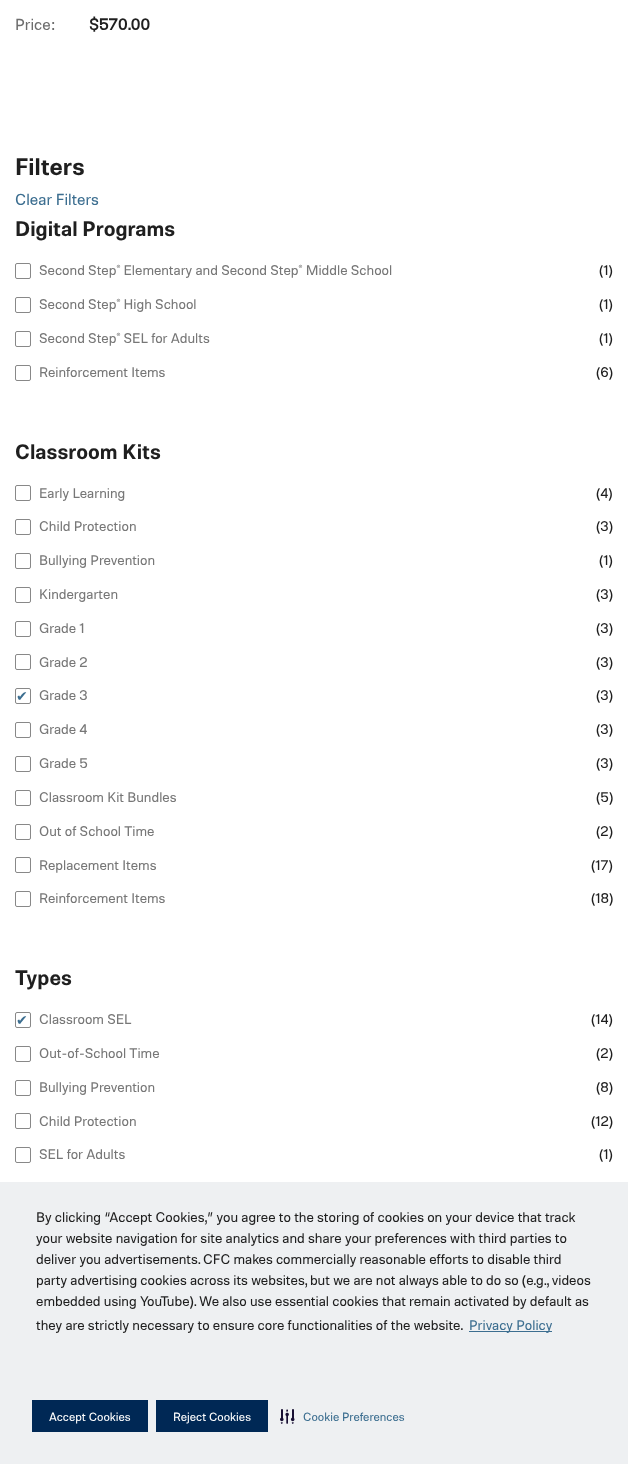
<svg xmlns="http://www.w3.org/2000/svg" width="628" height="1464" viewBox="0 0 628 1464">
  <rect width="100%" height="100%" fill="#fff"/>
  <rect x="15.5" y="263.5" width="15" height="15" rx="1.5" fill="none" stroke="#888"/>
  <rect x="15.5" y="297.5" width="15" height="15" rx="1.5" fill="none" stroke="#888"/>
  <rect x="15.5" y="331.5" width="15" height="15" rx="1.5" fill="none" stroke="#888"/>
  <rect x="15.5" y="365.5" width="15" height="15" rx="1.5" fill="none" stroke="#888"/>
  <rect x="15.5" y="485.5" width="15" height="15" rx="1.5" fill="none" stroke="#888"/>
  <rect x="15.5" y="519.5" width="15" height="15" rx="1.5" fill="none" stroke="#888"/>
  <rect x="15.5" y="553.5" width="15" height="15" rx="1.5" fill="none" stroke="#888"/>
  <rect x="15.5" y="587.5" width="15" height="15" rx="1.5" fill="none" stroke="#888"/>
  <rect x="15.5" y="621.5" width="15" height="15" rx="1.5" fill="none" stroke="#888"/>
  <rect x="15.5" y="654.5" width="15" height="15" rx="1.5" fill="none" stroke="#888"/>
  <rect x="15.5" y="688.5" width="15" height="15" rx="1.5" fill="none" stroke="#888"/>
  <rect x="15.5" y="722.5" width="15" height="15" rx="1.5" fill="none" stroke="#888"/>
  <rect x="15.5" y="756.5" width="15" height="15" rx="1.5" fill="none" stroke="#888"/>
  <rect x="15.5" y="790.5" width="15" height="15" rx="1.5" fill="none" stroke="#888"/>
  <rect x="15.5" y="824.5" width="15" height="15" rx="1.5" fill="none" stroke="#888"/>
  <rect x="15.5" y="857.5" width="15" height="15" rx="1.5" fill="none" stroke="#888"/>
  <rect x="15.5" y="891.5" width="15" height="15" rx="1.5" fill="none" stroke="#888"/>
  <rect x="15.5" y="1012.5" width="15" height="15" rx="1.5" fill="none" stroke="#888"/>
  <rect x="15.5" y="1046.5" width="15" height="15" rx="1.5" fill="none" stroke="#888"/>
  <rect x="15.5" y="1080.5" width="15" height="15" rx="1.5" fill="none" stroke="#888"/>
  <rect x="15.5" y="1113.5" width="15" height="15" rx="1.5" fill="none" stroke="#888"/>
  <rect x="15.5" y="1147.5" width="15" height="15" rx="1.5" fill="none" stroke="#888"/>
  <path d="M0 1182h628v282H0z" fill="#eef0f2"/>
  <path d="M469 1331h83v1H469z" fill="#3c6e90"/>
  <path d="M32 1400h116v32H32z" fill="#002855"/>
  <path d="M156 1400h112v32H156z" fill="#002855"/>
  <image x="280" y="1409" width="15" height="15" href="img/1.png"/>
  <text x="15" y="30" font-family="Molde" font-size="16" fill="#6d6d6d">Price:</text>
  <text x="89" y="30" font-family="Molde" font-size="16" font-weight="bold" fill="#1f1f1f">$570.00</text>
  <text x="15" y="175" font-family="Molde" font-size="24" font-weight="600" fill="#1f1f1f">Filters</text>
  <text x="15" y="205" font-family="Molde" font-size="16" fill="#3c6e90">Clear Filters</text>
  <text x="15" y="236" font-family="Molde" font-size="21" font-weight="600" fill="#1f1f1f">Digital Programs</text>
  <text x="39" y="275" font-family="Molde" font-size="14" fill="#777">Second Step® Elementary and Second Step® Middle School</text>
  <text x="599" y="275" font-family="Molde" font-size="14" fill="#1f1f1f">(1)</text>
  <text x="39" y="309" font-family="Molde" font-size="14" fill="#777">Second Step® High School</text>
  <text x="599" y="309" font-family="Molde" font-size="14" fill="#1f1f1f">(1)</text>
  <text x="39" y="343" font-family="Molde" font-size="14" fill="#777">Second Step® SEL for Adults</text>
  <text x="599" y="343" font-family="Molde" font-size="14" fill="#1f1f1f">(1)</text>
  <text x="39" y="377" font-family="Molde" font-size="14" fill="#777">Reinforcement Items</text>
  <text x="596" y="377" font-family="Molde" font-size="14" fill="#1f1f1f">(6)</text>
  <text x="15" y="459" font-family="Molde" font-size="21" font-weight="600" fill="#1f1f1f">Classroom Kits</text>
  <text x="39" y="498" font-family="Molde" font-size="14" fill="#777">Early Learning</text>
  <text x="596" y="498" font-family="Molde" font-size="14" fill="#1f1f1f">(4)</text>
  <text x="39" y="531" font-family="Molde" font-size="14" fill="#777">Child Protection</text>
  <text x="596" y="531" font-family="Molde" font-size="14" fill="#1f1f1f">(3)</text>
  <text x="39" y="565" font-family="Molde" font-size="14" fill="#777">Bullying Prevention</text>
  <text x="599" y="565" font-family="Molde" font-size="14" fill="#1f1f1f">(1)</text>
  <text x="39" y="599" font-family="Molde" font-size="14" fill="#777">Kindergarten</text>
  <text x="596" y="599" font-family="Molde" font-size="14" fill="#1f1f1f">(3)</text>
  <text x="39" y="633" font-family="Molde" font-size="14" fill="#777">Grade 1</text>
  <text x="596" y="633" font-family="Molde" font-size="14" fill="#1f1f1f">(3)</text>
  <text x="39" y="667" font-family="Molde" font-size="14" fill="#777">Grade 2</text>
  <text x="596" y="667" font-family="Molde" font-size="14" fill="#1f1f1f">(3)</text>
  <text x="16" y="701" font-family="DejaVu Sans" font-size="14" fill="#3c6e90">✔</text>
  <text x="39" y="700" font-family="Molde" font-size="14" fill="#777">Grade 3</text>
  <text x="596" y="700" font-family="Molde" font-size="14" fill="#1f1f1f">(3)</text>
  <text x="39" y="734" font-family="Molde" font-size="14" fill="#777">Grade 4</text>
  <text x="596" y="734" font-family="Molde" font-size="14" fill="#1f1f1f">(3)</text>
  <text x="39" y="768" font-family="Molde" font-size="14" fill="#777">Grade 5</text>
  <text x="596" y="768" font-family="Molde" font-size="14" fill="#1f1f1f">(3)</text>
  <text x="39" y="802" font-family="Molde" font-size="14" fill="#777">Classroom Kit Bundles</text>
  <text x="596" y="802" font-family="Molde" font-size="14" fill="#1f1f1f">(5)</text>
  <text x="39" y="836" font-family="Molde" font-size="14" fill="#777">Out of School Time</text>
  <text x="596" y="836" font-family="Molde" font-size="14" fill="#1f1f1f">(2)</text>
  <text x="39" y="870" font-family="Molde" font-size="14" fill="#777">Replacement Items</text>
  <text x="591" y="870" font-family="Molde" font-size="14" fill="#1f1f1f">(17)</text>
  <text x="39" y="903" font-family="Molde" font-size="14" fill="#777">Reinforcement Items</text>
  <text x="591" y="903" font-family="Molde" font-size="14" fill="#1f1f1f">(18)</text>
  <text x="15" y="985" font-family="Molde" font-size="21" font-weight="600" fill="#1f1f1f">Types</text>
  <text x="16" y="1025" font-family="DejaVu Sans" font-size="14" fill="#3c6e90">✔</text>
  <text x="39" y="1024" font-family="Molde" font-size="14" fill="#777">Classroom SEL</text>
  <text x="591" y="1024" font-family="Molde" font-size="14" fill="#1f1f1f">(14)</text>
  <text x="39" y="1058" font-family="Molde" font-size="14" fill="#777">Out-of-School Time</text>
  <text x="596" y="1058" font-family="Molde" font-size="14" fill="#1f1f1f">(2)</text>
  <text x="39" y="1092" font-family="Molde" font-size="14" fill="#777">Bullying Prevention</text>
  <text x="596" y="1092" font-family="Molde" font-size="14" fill="#1f1f1f">(8)</text>
  <text x="39" y="1126" font-family="Molde" font-size="14" fill="#777">Child Protection</text>
  <text x="591" y="1126" font-family="Molde" font-size="14" fill="#1f1f1f">(12)</text>
  <text x="39" y="1159" font-family="Molde" font-size="14" fill="#777">SEL for Adults</text>
  <g font-family="Molde" font-size="14" fill="#1f1f1f">
    <text x="599" y="1159">(1)</text>
    <text x="36" y="1222">By clicking “Accept Cookies,” you agree to the storing of cookies on your device that track</text>
    <text x="36" y="1243">your website navigation for site analytics and share your preferences with third parties to</text>
    <text x="36" y="1264">deliver you advertisements. CFC makes commercially reasonable efforts to disable third</text>
    <text x="36" y="1285">party advertising cookies across its websites, but we are not always able to do so (e.g., videos</text>
    <text x="36" y="1306">embedded using YouTube). We also use essential cookies that remain activated by default as</text>
    <text x="36" y="1330">they are strictly necessary to ensure core functionalities of the website.</text>
  </g>
  <text x="469" y="1330" font-family="Molde" font-size="14" fill="#3c6e90">Privacy Policy</text>
  <g font-family="Molde" font-size="12" fill="#fff">
    <text x="49" y="1421">Accept Cookies</text>
    <text x="173" y="1421">Reject Cookies</text>
  </g>
  <text x="303" y="1421" font-family="Molde" font-size="12" fill="#3c6e90">Cookie Preferences</text>
</svg>
